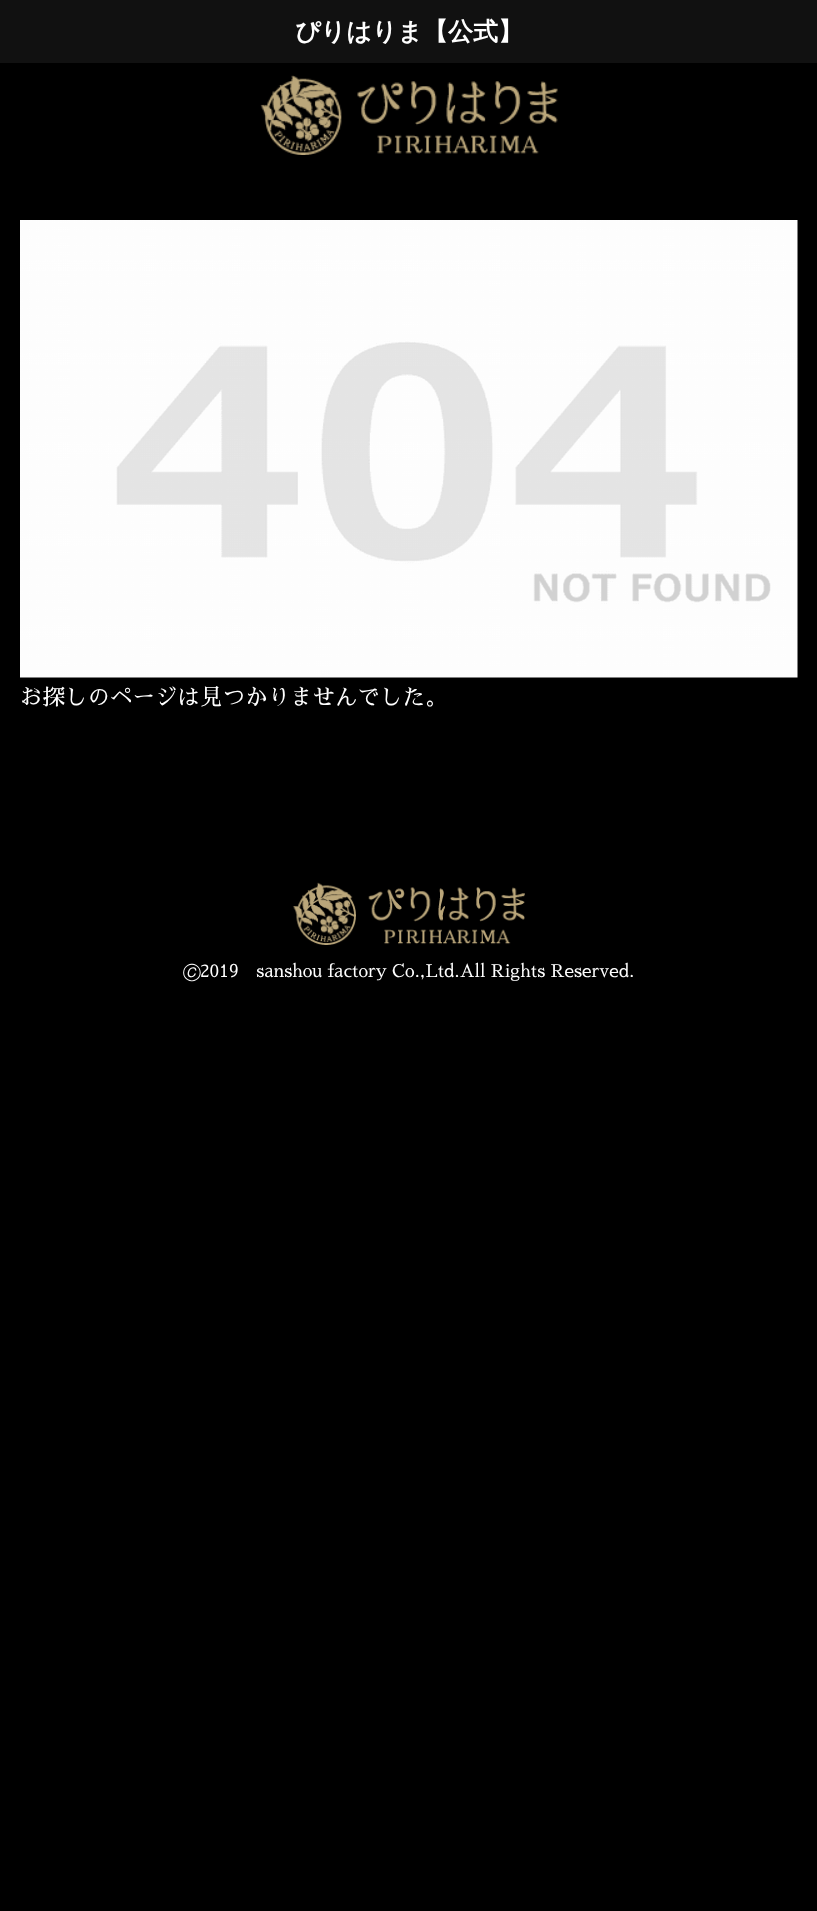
<svg xmlns="http://www.w3.org/2000/svg" width="817" height="1911" viewBox="0 0 817 1911">
  <rect width="100%" height="100%" fill="#000"/>
  <path d="M0 0h817v63H0z" fill="#111"/>
  <image x="260" y="75" width="298" height="80" href="img/1.png"/>
  <image x="20" y="220" width="778" height="458" href="img/2.png"/>
  <image x="292" y="882" width="233" height="63" href="img/3.png"/>
  <text x="295" y="40" font-family="WenQuanYi Zen Hei" font-size="25" font-weight="bold" fill="#fff">ぴりはりま【公式】</text>
  <text x="20" y="705" font-family="Sawarabi Mincho" font-size="22.5" fill="#fff">お探しのページは見つかりませんでした。</text>
  <text x="183" y="977" font-family="FreeSans" font-size="17.5" fill="#fff">🄫</text>
  <text x="200" y="977" font-family="Sawarabi Mincho" font-size="17.5" fill="#fff">2019　sanshou factory Co.,Ltd.All Rights Reserved.</text>
</svg>
